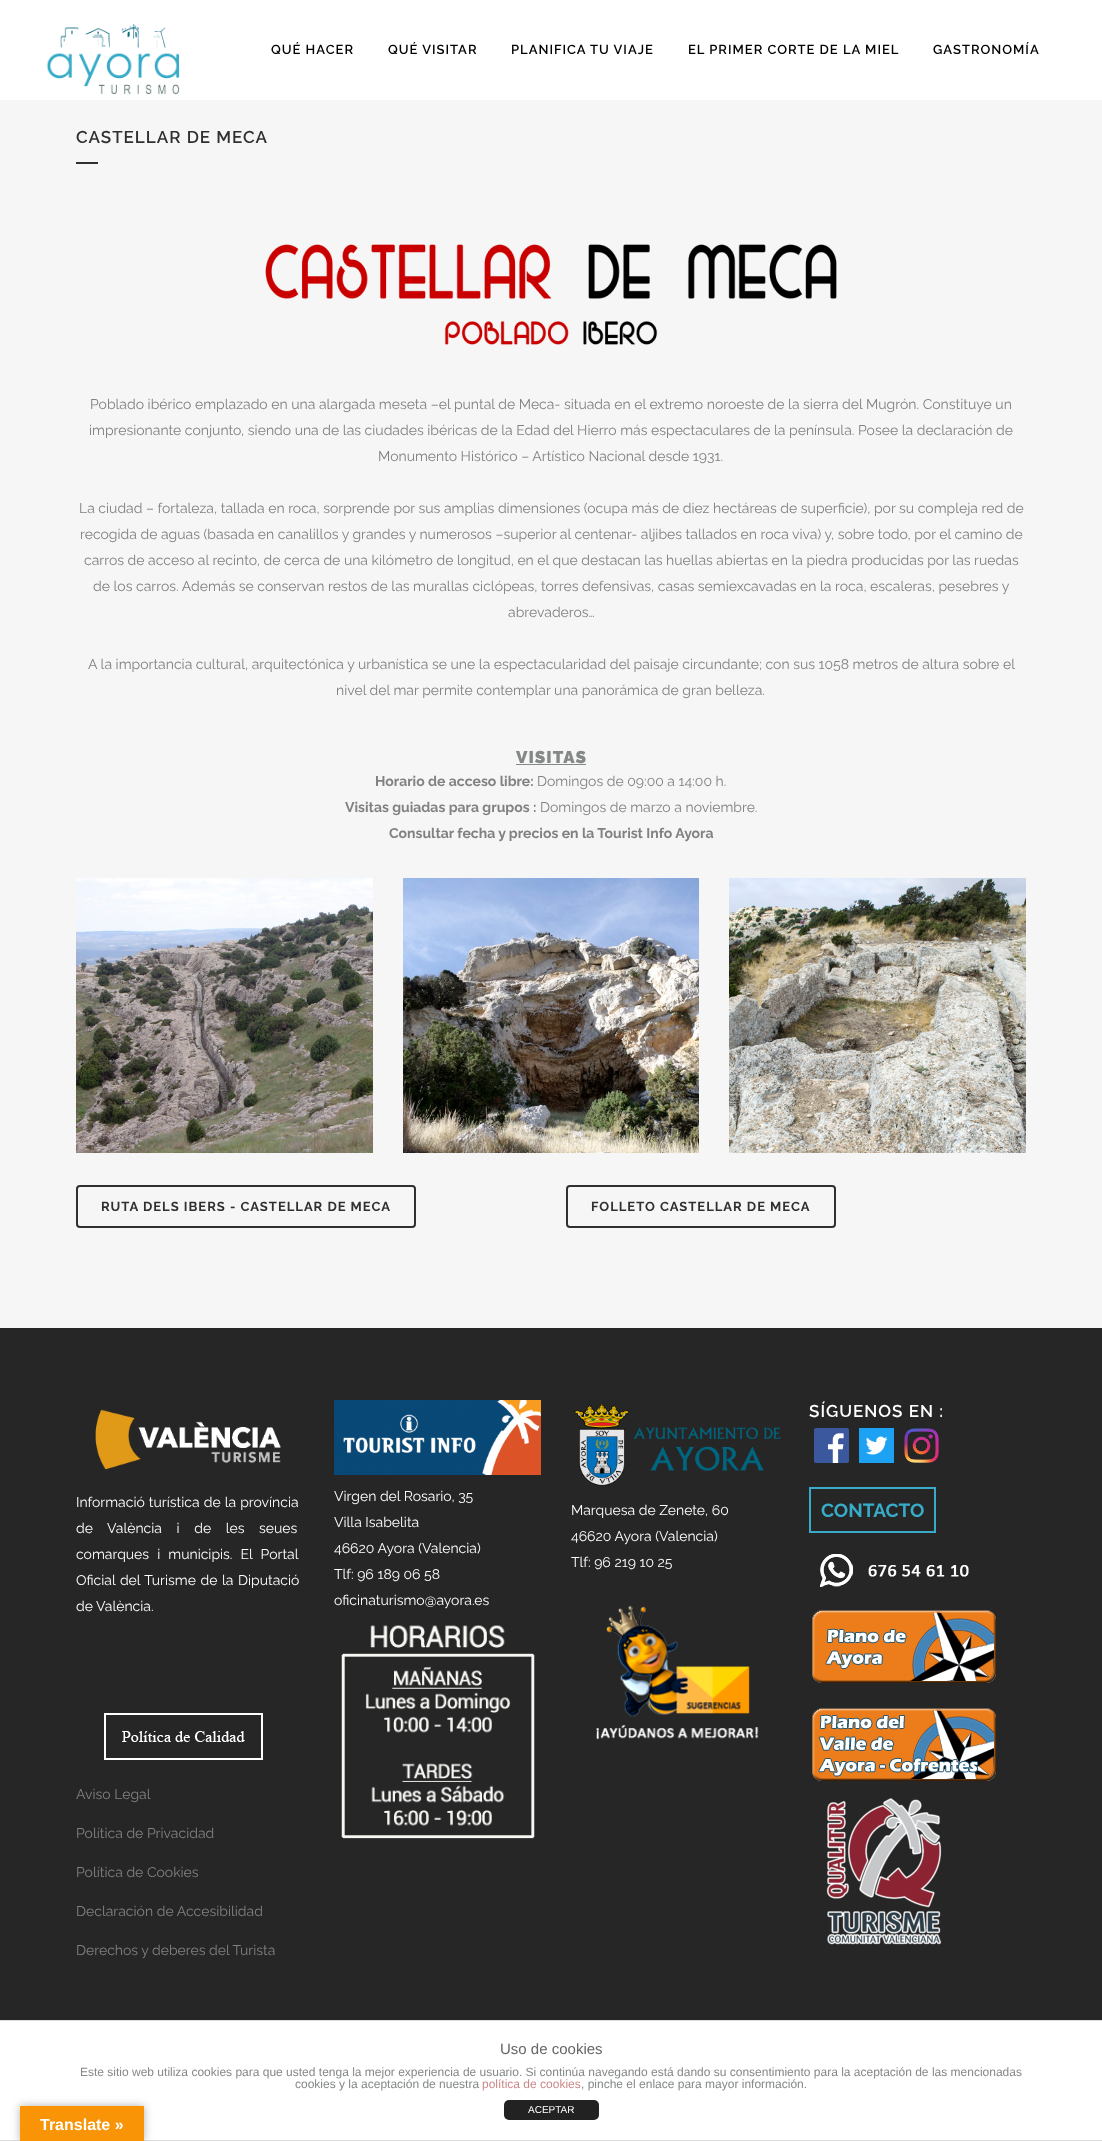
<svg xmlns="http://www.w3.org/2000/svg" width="1102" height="2141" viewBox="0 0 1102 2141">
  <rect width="100%" height="100%" fill="#f6f6f6"/>
  <path d="M0 0h1102v100H0z" fill="#fff"/>
  <image x="46" y="23" width="134" height="72" href="img/1.png"/>
  <path d="M76 162h22v2H76z" fill="#303030"/>
  <image x="265" y="244" width="572" height="101" href="img/2.png"/>
  <path d="M516 764h70v1H516z" fill="#858888"/>
  <image x="76" y="878" width="297" height="275" href="img/3.png"/>
  <image x="403" y="878" width="296" height="275" href="img/4.png"/>
  <image x="729" y="878" width="297" height="275" href="img/5.png"/>
  <rect x="77" y="1186" width="338" height="41" rx="3" fill="none" stroke="#303030" stroke-width="2"/>
  <rect x="567" y="1186" width="268" height="41" rx="3" fill="none" stroke="#303030" stroke-width="2"/>
  <path d="M0 1328h1102v692H0z" fill="#262626"/>
  <image x="814" y="1428" width="35" height="35" href="img/6.png"/>
  <image x="859" y="1428" width="35" height="35" href="img/7.png"/>
  <image x="904" y="1428" width="35" height="35" href="img/8.png"/>
  <path d="M810 1488h125v44H810z" fill="none" stroke="#37abc8" stroke-width="2"/>
  <image x="820" y="1554" width="149" height="33" href="img/9.png"/>
  <image x="812" y="1610" width="184" height="73" href="img/10.png"/>
  <image x="812" y="1708" width="184" height="73" href="img/11.png"/>
  <image x="826" y="1798" width="116" height="147" href="img/12.png"/>
  <image x="95" y="1409" width="186" height="61" href="img/13.png"/>
  <image x="104" y="1713" width="159" height="47" href="img/14.png"/>
  <image x="334" y="1400" width="207" height="75" href="img/15.png"/>
  <image x="341" y="1625" width="194" height="214" href="img/16.png"/>
  <image x="574" y="1403" width="207" height="83" href="img/17.png"/>
  <image x="596" y="1605" width="163" height="135" href="img/18.png"/>
  <path d="M0 2021h1102v119H0z" fill="#fff"/>
  <path d="M0 2020h1102v1H0z" fill="#ddd"/>
  <path d="M0 2140h1102v1H0z" fill="#ddd"/>
  <rect x="504" y="2100" width="95" height="20" rx="5" fill="#222"/>
  <path d="M20 2106h124v35H20z" fill="#0000004d" filter="blur(4.5px)"/>
  <path d="M20 2106h124v35H20z" fill="#f89406"/>
  <g font-family="Raleway" font-size="13" font-weight="600" letter-spacing="1" fill="#000">
    <text x="271" y="54">QUÉ HACER</text>
    <text x="388" y="54">QUÉ VISITAR</text>
    <text x="511" y="54">PLANIFICA TU VIAJE</text>
    <text x="688" y="54">EL PRIMER CORTE DE LA MIEL</text>
    <text x="933" y="54">GASTRONOMÍA</text>
  </g>
  <text x="76" y="143" font-family="Raleway" font-size="17" font-weight="600" letter-spacing="1" fill="#303030">CASTELLAR DE MECA</text>
  <g font-family="Raleway" font-size="14" fill="#818181">
    <text x="90" y="409">Poblado ibérico emplazado en una alargada meseta –el puntal de Meca- situada en el extremo noroeste de la sierra del Mugrón. Constituye un</text>
    <text x="89" y="435">impresionante conjunto, siendo una de las ciudades ibéricas de la Edad del Hierro más espectaculares de la península. Posee la declaración de</text>
    <text x="378" y="461">Monumento Histórico – Artístico Nacional desde 1931.</text>
    <text x="79" y="513">La ciudad – fortaleza, tallada en roca, sorprende por sus amplias dimensiones (ocupa más de diez hectáreas de superficie), por su compleja red de</text>
    <text x="80" y="539">recogida de aguas (basada en canalillos y grandes y numerosos –superior al centenar- aljibes tallados en roca viva) y, sobre todo, por el camino de</text>
    <text x="84" y="565">carros de acceso al recinto, de cerca de una kilómetro de longitud, en el que destacan las huellas abiertas en la piedra producidas por las ruedas</text>
    <text x="93" y="591">de los carros. Además se conservan restos de las murallas ciclópeas, torres defensivas, casas semiexcavadas en la roca, escaleras, pesebres y</text>
    <text x="508" y="617">abrevaderos…</text>
    <text x="88" y="669">A la importancia cultural, arquitectónica y urbanística se une la espectacularidad del paisaje circundante; con sus 1058 metros de altura sobre el</text>
    <text x="336" y="695">nivel del mar permite contemplar una panorámica de gran belleza.</text>
  </g>
  <text x="516" y="763" font-family="Raleway" font-size="17" font-weight="900" letter-spacing="1" fill="#858888">VISITAS</text>
  <text x="375" y="786" font-family="Raleway" font-size="14" font-weight="bold" fill="#818181">Horario de acceso libre:</text>
  <text x="537" y="786" font-family="Raleway" font-size="14" fill="#818181">Domingos de 09:00 a 14:00 h.</text>
  <text x="345" y="812" font-family="Raleway" font-size="14" font-weight="bold" fill="#818181">Visitas guiadas para grupos :</text>
  <text x="540" y="812" font-family="Raleway" font-size="14" fill="#818181">Domingos de marzo a noviembre.</text>
  <text x="389" y="838" font-family="Raleway" font-size="14" font-weight="bold" fill="#818181">Consultar fecha y precios en la Tourist Info Ayora</text>
  <g font-family="Raleway" font-size="13" font-weight="bold" letter-spacing="1" fill="#303030">
    <text x="101" y="1211">RUTA DELS IBERS - CASTELLAR DE MECA</text>
    <text x="591" y="1211">FOLLETO CASTELLAR DE MECA</text>
  </g>
  <text x="809" y="1417" font-family="Raleway" font-size="17" font-weight="600" letter-spacing="1" fill="#fff">SÍGUENOS EN :</text>
  <text x="821" y="1517" font-family="Raleway" font-size="19" font-weight="bold" fill="#37abc8">CONTACTO</text>
  <g font-family="Raleway" font-size="14" fill="#fff">
    <text x="76" y="1507" word-spacing="0.5">Informació turística de la província</text>
    <text x="76" y="1533" word-spacing="11">de València i de les seues</text>
    <text x="76" y="1559" word-spacing="4.5">comarques i municipis. El Portal</text>
    <text x="76" y="1585" word-spacing="1">Oficial del Turisme de la Diputació</text>
    <text x="76" y="1611">de València.</text>
  </g>
  <g font-family="Raleway" font-size="14" fill="#818181">
    <text x="76" y="1799">Aviso Legal</text>
    <text x="76" y="1838">Política de Privacidad</text>
    <text x="76" y="1877">Política de Cookies</text>
    <text x="76" y="1916">Declaración de Accesibilidad</text>
    <text x="76" y="1955">Derechos y deberes del Turista</text>
  </g>
  <g font-family="Raleway" font-size="14" fill="#fff">
    <text x="334" y="1501">Virgen del Rosario, 35</text>
    <text x="334" y="1527">Villa Isabelita</text>
    <text x="334" y="1553">46620 Ayora (Valencia)</text>
    <text x="334" y="1579">Tlf: 96 189 06 58</text>
    <text x="334" y="1605">oficinaturismo@ayora.es</text>
    <text x="571" y="1515">Marquesa de Zenete, 60</text>
    <text x="571" y="1541">46620 Ayora (Valencia)</text>
    <text x="571" y="1567">Tlf: 96 219 10 25</text>
  </g>
  <text x="500" y="2054" font-family="Liberation Sans" font-size="15" fill="#666">Uso de cookies</text>
  <g font-family="Liberation Sans" font-size="12" fill="#858888">
    <text x="80" y="2076">Este sitio web utiliza cookies para que usted tenga la mejor experiencia de usuario. Si continúa navegando está dando su consentimiento para la aceptación de las mencionadas</text>
    <text x="295" y="2088">cookies y la aceptación de nuestra</text>
  </g>
  <text x="482" y="2088" font-family="Liberation Sans" font-size="12" fill="#c88">política de cookies</text>
  <text x="581" y="2088" font-family="Liberation Sans" font-size="12" fill="#858888">, pinche el enlace para mayor información.</text>
  <text x="528" y="2113" font-family="Liberation Sans" font-size="10" fill="#fff">ACEPTAR</text>
  <text x="40" y="2130" font-family="Liberation Sans" font-size="16" font-weight="bold" fill="#fff">Translate »</text>
</svg>
